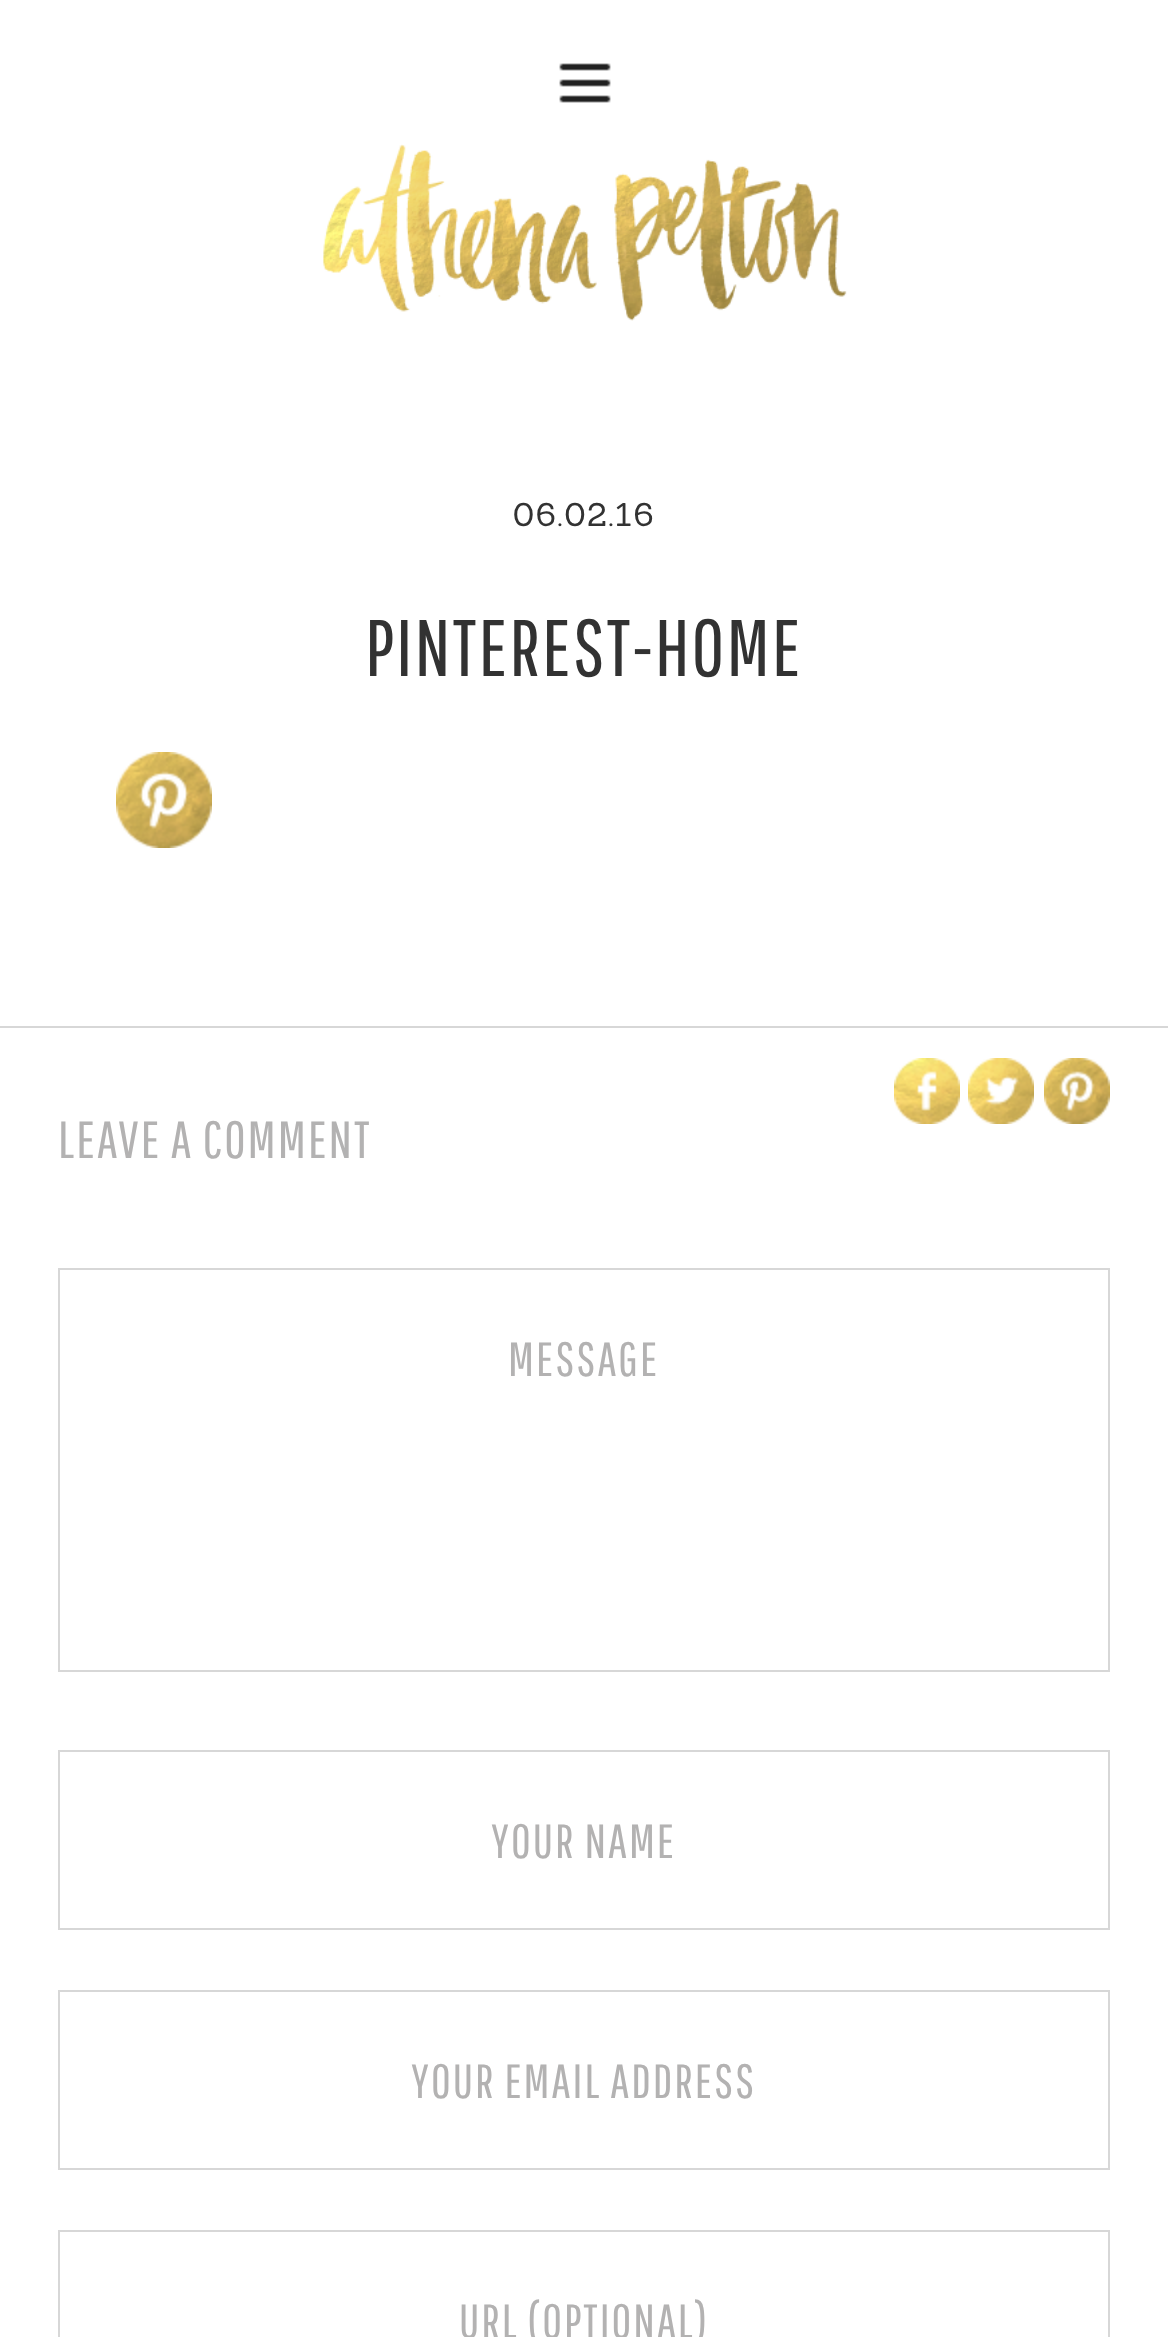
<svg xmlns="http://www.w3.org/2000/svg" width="1168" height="2337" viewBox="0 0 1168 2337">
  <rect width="100%" height="100%" fill="#fff"/>
  <image x="559" y="63" width="52" height="40" href="img/1.png"/>
  <image x="323" y="144" width="524" height="177" href="img/2.png"/>
  <image x="116" y="752" width="96" height="96" href="img/3.png"/>
  <path d="M0 1026h1168v2H0z" fill="#d7d7d7"/>
  <image x="894" y="1058" width="66" height="66" href="img/4.png"/>
  <image x="968" y="1058" width="66" height="66" href="img/5.png"/>
  <image x="1044" y="1058" width="66" height="66" href="img/6.png"/>
  <path d="M59 1269h1050v402H59z" fill="none" stroke="#d7d7d7" stroke-width="2"/>
  <path d="M59 1751h1050v178H59z" fill="none" stroke="#d7d7d7" stroke-width="2"/>
  <path d="M59 1991h1050v178H59z" fill="none" stroke="#d7d7d7" stroke-width="2"/>
  <path d="M59 2231h1050v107H59z" fill="none" stroke="#d7d7d7" stroke-width="2"/>
  <text x="513" y="526" font-family="Sanchez" font-size="32" letter-spacing="2" fill="#323232">06.02.16</text>
  <text x="365" y="676" font-family="Pathway Gothic One" font-size="80" letter-spacing="2" fill="#323232">PINTEREST-HOME</text>
  <text x="58" y="1158" font-family="Pathway Gothic One" font-size="52" letter-spacing="2" fill="#b3b2b2">LEAVE A COMMENT</text>
  <g font-family="Pathway Gothic One" font-size="48" letter-spacing="2" fill="#b3b2b2">
    <text x="508" y="1376">MESSAGE</text>
    <text x="491" y="1858">YOUR NAME</text>
    <text x="411" y="2098">YOUR EMAIL ADDRESS</text>
    <text x="459" y="2338">URL (OPTIONAL)</text>
  </g>
</svg>
